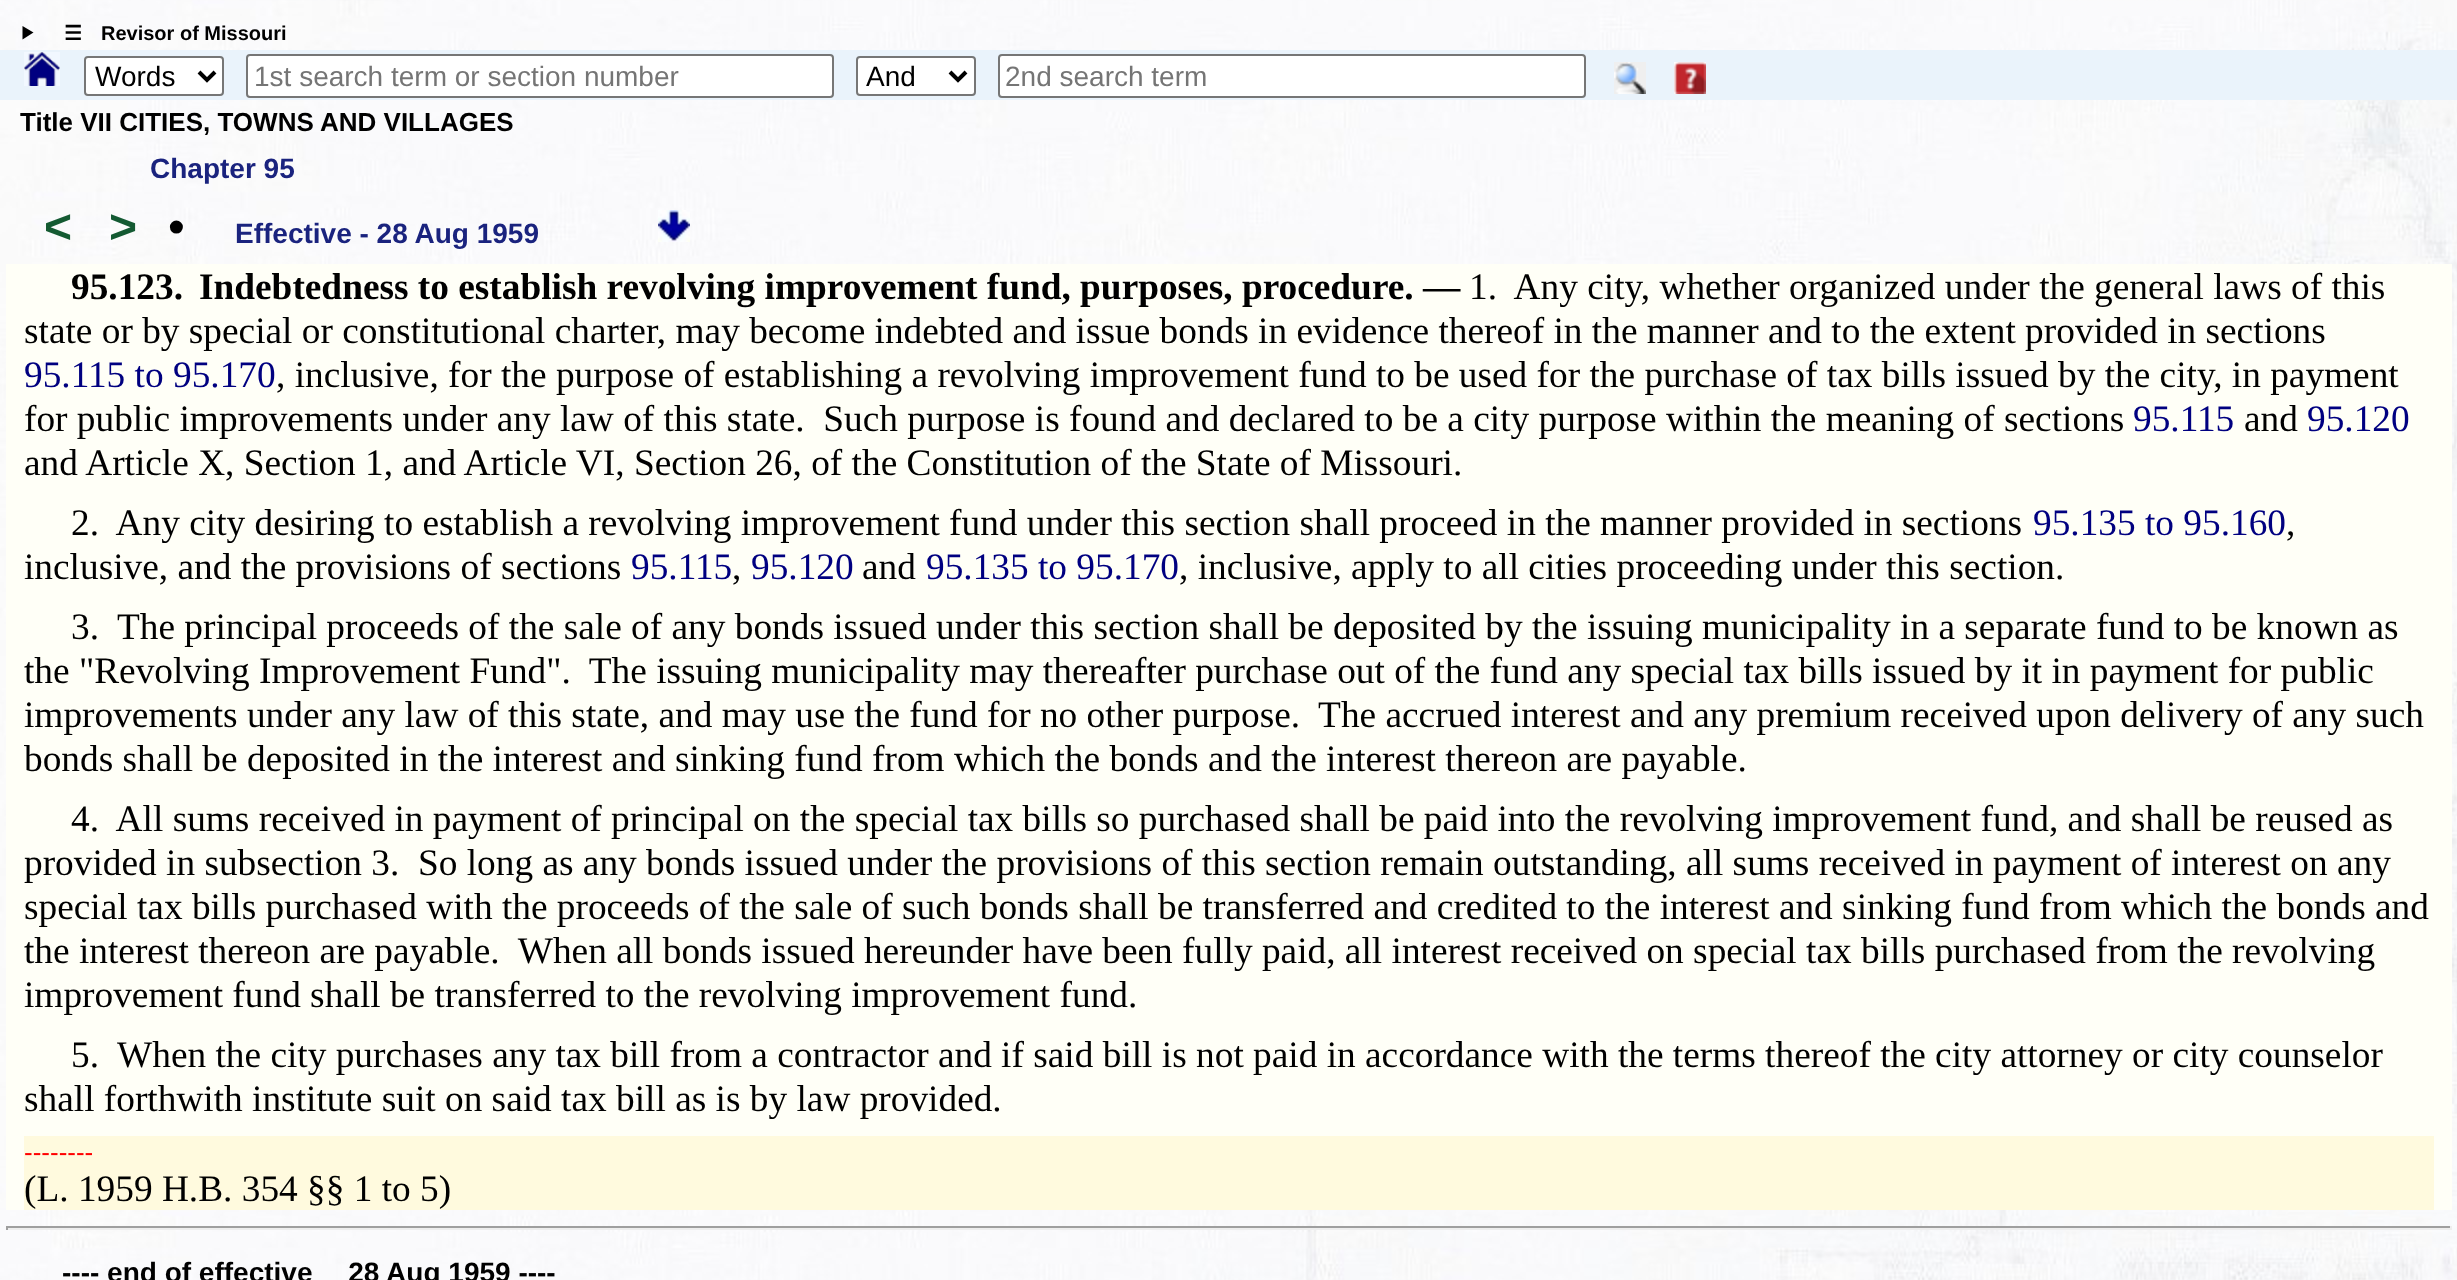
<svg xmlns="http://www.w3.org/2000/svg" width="2457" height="1280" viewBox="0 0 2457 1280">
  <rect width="100%" height="100%" fill="#fff"/>
  <image x="0" y="0" width="2457" height="1280" href="img/1.png"/>
  <path d="M22.5 26L33.5 32.5L22.5 39.5Z" fill="#000"/>
  <path d="M0 50h2457v50H0z" fill="#eaf3fb"/>
  <image x="24" y="52" width="36" height="34" href="img/2.png"/>
  <rect x="85" y="57" width="138" height="38" rx="3" fill="#fff" stroke="#767676" stroke-width="2"/>
  <path d="M199 72L207 80L215 72" fill="none" stroke="#000" stroke-width="4"/>
  <rect x="247" y="55" width="586" height="42" rx="3" fill="#fff" stroke="#767676" stroke-width="2"/>
  <rect x="857" y="57" width="118" height="38" rx="3" fill="#fff" stroke="#767676" stroke-width="2"/>
  <path d="M950 72L958 80L966 72" fill="none" stroke="#000" stroke-width="4"/>
  <rect x="999" y="55" width="586" height="42" rx="3" fill="#fff" stroke="#767676" stroke-width="2"/>
  <image x="1614" y="62" width="32" height="32" href="img/3.png"/>
  <image x="1674" y="62" width="32" height="32" href="img/4.png"/>
  <image x="658" y="210" width="32" height="32" href="img/5.png"/>
  <path d="M6 264h2446v946H6z" fill="#fffff7"/>
  <path d="M24 1136h2410v74H24z" fill="#fffade"/>
  <path d="M6 1226h2446v2H6z" fill="#9f9f9f"/>
  <path d="M2450 1226h2v4H2450z" fill="#eee"/>
  <path d="M6 1228h2446v2H6z" fill="#eee"/>
  <path d="M6 1226h2v4H6z" fill="#9f9f9f"/>
  <text x="64" y="40" font-family="DejaVu Sans" font-size="20" font-weight="bold" fill="#000">☰</text>
  <text x="101" y="40" font-family="Liberation Sans" font-size="20" font-weight="bold" fill="#000">Revisor of Missouri</text>
  <text x="95" y="86" font-family="Liberation Sans" font-size="28" fill="#000">Words</text>
  <text x="254" y="86" font-family="Liberation Sans" font-size="28" fill="#757575">1st search term or section number</text>
  <text x="866" y="86" font-family="Liberation Sans" font-size="28" fill="#000">And</text>
  <text x="1005" y="86" font-family="Liberation Sans" font-size="28" fill="#757575">2nd search term</text>
  <text x="20" y="131" font-family="Liberation Sans" font-size="26" font-weight="bold" fill="#000">Title VII CITIES, TOWNS AND VILLAGES</text>
  <text x="150" y="178" font-family="Liberation Sans" font-size="28" font-weight="bold" fill="#1a237e">Chapter 95</text>
  <g font-family="Liberation Sans" font-size="48" font-weight="bold" fill="#145a32">
    <text x="44" y="243">&lt;</text>
    <text x="109" y="243">&gt;</text>
  </g>
  <text x="168" y="243" font-family="Liberation Sans" font-size="48" fill="#000">•</text>
  <text x="235" y="243" font-family="Liberation Sans" font-size="28" font-weight="bold" fill="#1a237e">Effective - 28 Aug 1959</text>
  <g font-family="Liberation Serif" font-size="37.33" font-weight="bold" fill="#000">
    <text x="71" y="299">95.123.</text>
    <text x="199" y="299">Indebtedness to establish revolving improvement fund, purposes, procedure. —</text>
  </g>
  <g font-family="Liberation Serif" font-size="37.33" fill="#000">
    <text x="1469" y="299" xml:space="preserve">1.  Any city, whether organized under the general laws of this</text>
    <text x="24" y="343">state or by special or constitutional charter, may become indebted and issue bonds in evidence thereof in the manner and to the extent provided in sections</text>
  </g>
  <text x="24" y="387" font-family="Liberation Serif" font-size="37.33" fill="#000080">95.115 to 95.170</text>
  <g font-family="Liberation Serif" font-size="37.33" fill="#000">
    <text x="276" y="387">, inclusive, for the purpose of establishing a revolving improvement fund to be used for the purchase of tax bills issued by the city, in payment</text>
    <text x="24" y="431" xml:space="preserve">for public improvements under any law of this state.  Such purpose is found and declared to be a city purpose within the meaning of sections</text>
  </g>
  <text x="2133" y="431" font-family="Liberation Serif" font-size="37.33" fill="#000080">95.115</text>
  <text x="2244" y="431" font-family="Liberation Serif" font-size="37.33" fill="#000">and</text>
  <text x="2307" y="431" font-family="Liberation Serif" font-size="37.33" fill="#000080">95.120</text>
  <g font-family="Liberation Serif" font-size="37.33" fill="#000">
    <text x="24" y="475">and Article X, Section 1, and Article VI, Section 26, of the Constitution of the State of Missouri.</text>
    <text x="71" y="535" xml:space="preserve">2.  Any city desiring to establish a revolving improvement fund under this section shall proceed in the manner provided in sections</text>
  </g>
  <text x="2033" y="535" font-family="Liberation Serif" font-size="37.33" fill="#000080">95.135 to 95.160</text>
  <g font-family="Liberation Serif" font-size="37.33" fill="#000">
    <text x="2286" y="535">,</text>
    <text x="24" y="579">inclusive, and the provisions of sections</text>
  </g>
  <text x="631" y="579" font-family="Liberation Serif" font-size="37.33" fill="#000080">95.115</text>
  <text x="732" y="579" font-family="Liberation Serif" font-size="37.33" fill="#000">,</text>
  <text x="751" y="579" font-family="Liberation Serif" font-size="37.33" fill="#000080">95.120</text>
  <text x="862" y="579" font-family="Liberation Serif" font-size="37.33" fill="#000">and</text>
  <text x="926" y="579" font-family="Liberation Serif" font-size="37.33" fill="#000080">95.135 to 95.170</text>
  <g font-family="Liberation Serif" font-size="37.33" fill="#000">
    <text x="1179" y="579">, inclusive, apply to all cities proceeding under this section.</text>
    <text x="71" y="639" xml:space="preserve">3.  The principal proceeds of the sale of any bonds issued under this section shall be deposited by the issuing municipality in a separate fund to be known as</text>
    <text x="24" y="683" xml:space="preserve">the "Revolving Improvement Fund".  The issuing municipality may thereafter purchase out of the fund any special tax bills issued by it in payment for public</text>
    <text x="24" y="727" xml:space="preserve">improvements under any law of this state, and may use the fund for no other purpose.  The accrued interest and any premium received upon delivery of any such</text>
    <text x="24" y="771">bonds shall be deposited in the interest and sinking fund from which the bonds and the interest thereon are payable.</text>
    <text x="71" y="831" xml:space="preserve">4.  All sums received in payment of principal on the special tax bills so purchased shall be paid into the revolving improvement fund, and shall be reused as</text>
    <text x="24" y="875" xml:space="preserve">provided in subsection 3.  So long as any bonds issued under the provisions of this section remain outstanding, all sums received in payment of interest on any</text>
    <text x="24" y="919">special tax bills purchased with the proceeds of the sale of such bonds shall be transferred and credited to the interest and sinking fund from which the bonds and</text>
    <text x="24" y="963" xml:space="preserve">the interest thereon are payable.  When all bonds issued hereunder have been fully paid, all interest received on special tax bills purchased from the revolving</text>
    <text x="24" y="1007">improvement fund shall be transferred to the revolving improvement fund.</text>
    <text x="71" y="1067" xml:space="preserve">5.  When the city purchases any tax bill from a contractor and if said bill is not paid in accordance with the terms thereof the city attorney or city counselor</text>
    <text x="24" y="1111">shall forthwith institute suit on said tax bill as is by law provided.</text>
  </g>
  <text x="24" y="1161" font-family="Liberation Sans" font-size="26" fill="#f00">--------</text>
  <text x="24" y="1201" font-family="Liberation Serif" font-size="37.33" fill="#000">(L. 1959 H.B. 354 §§ 1 to 5)</text>
  <text x="62" y="1282" font-family="Liberation Sans" font-size="28" font-weight="bold" fill="#000">---- end of effective  28 Aug 1959 ----</text>
</svg>
